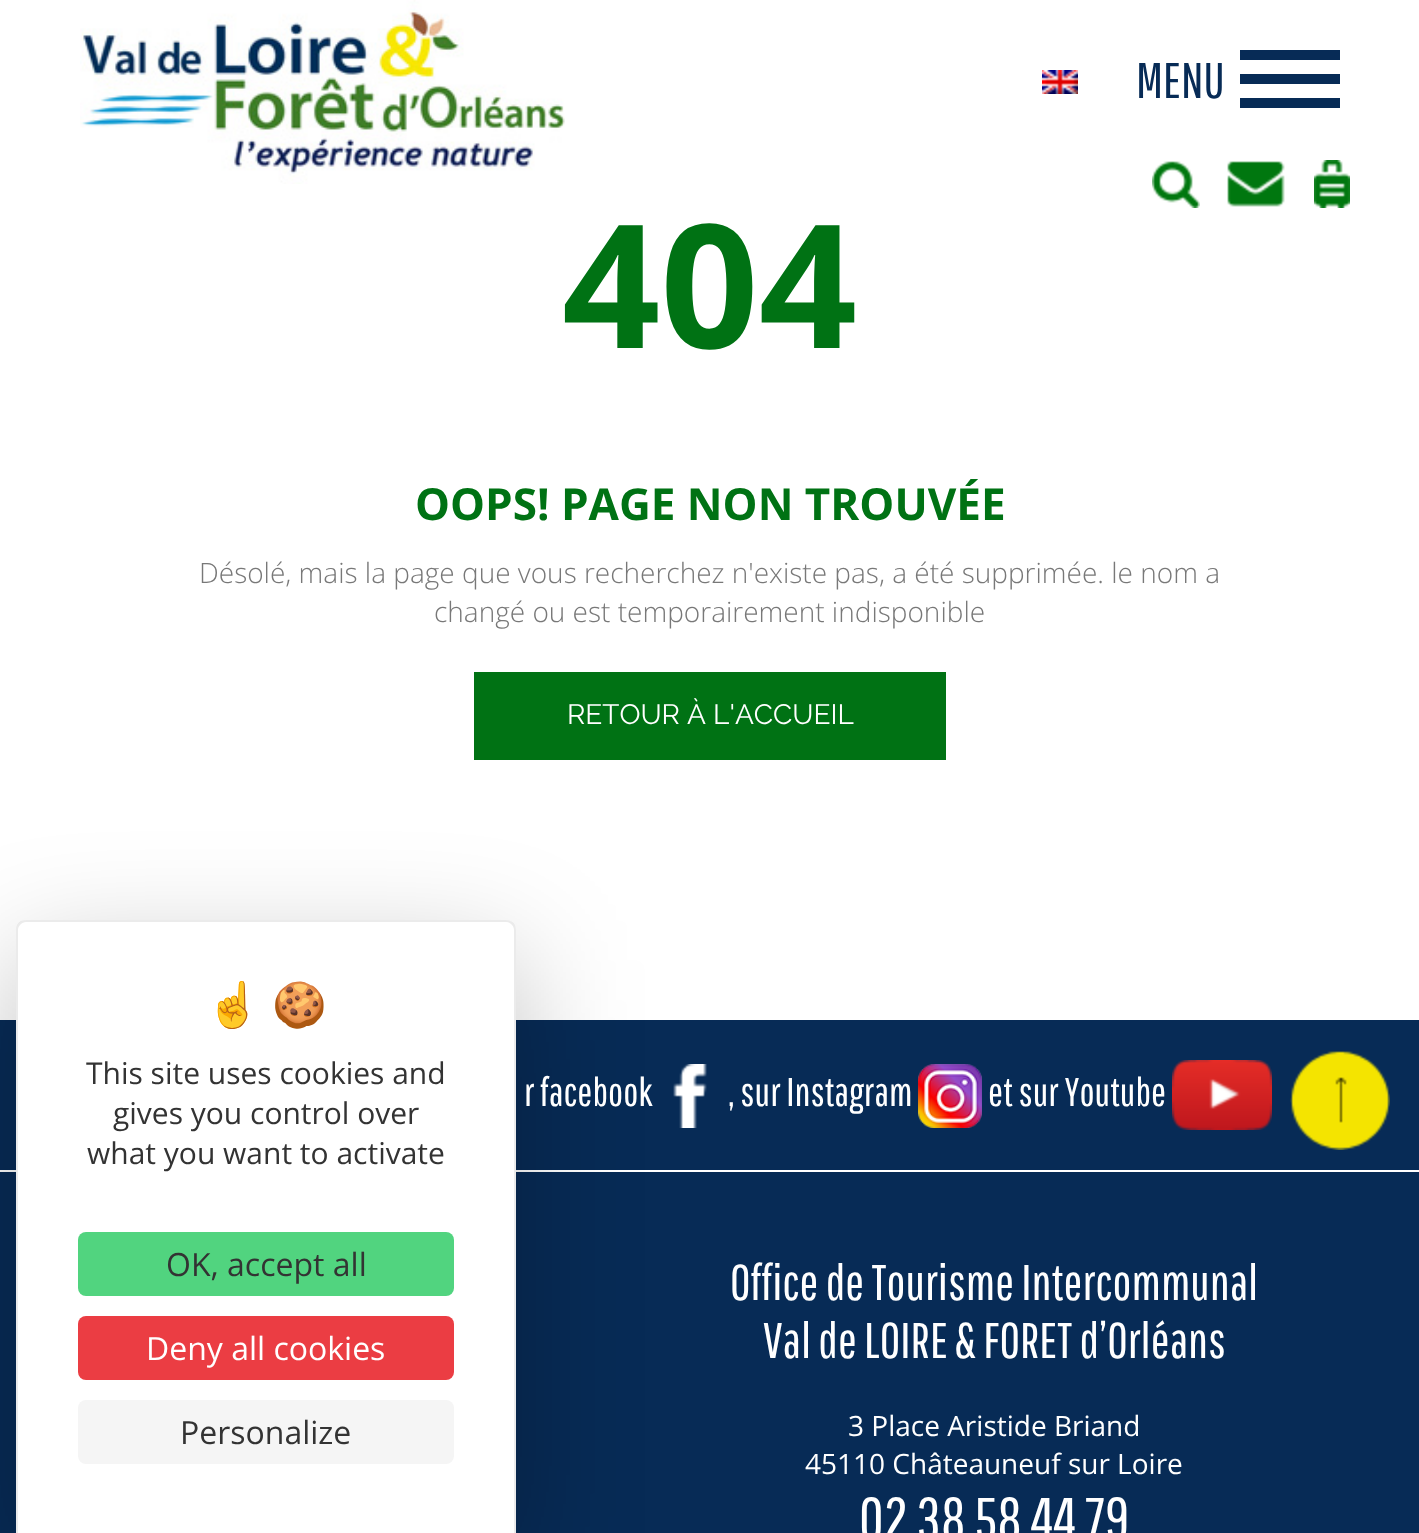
<svg xmlns="http://www.w3.org/2000/svg" width="1419" height="1533" viewBox="0 0 1419 1533">
  <style>*{font-kerning:none!important;font-variant-ligatures:none!important}</style>
  <rect width="100%" height="100%" fill="#fff"/>
  <image x="80" y="0" width="485" height="184" href="img/1.png"/>
  <image x="1042" y="70" width="36" height="24" href="img/2.png"/>
  <path d="M1240 74h100v10H1240z" fill="#072b56"/>
  <path d="M1240 50h100v10H1240z" fill="#072b56"/>
  <path d="M1240 98h100v10H1240z" fill="#072b56"/>
  <image x="1152" y="161" width="48" height="47" href="img/3.png"/>
  <image x="1227" y="161" width="58" height="46" href="img/4.png"/>
  <image x="1314" y="160" width="36" height="48" href="img/5.png"/>
  <path d="M474 672h472v88H474z" fill="#007214"/>
  <path d="M0 1020h1419v513H0z" fill="#072b56"/>
  <image x="673" y="1064" width="34" height="64" href="img/6.png"/>
  <path d="M0 1170h1419v2H0z" fill="#fff"/>
  <rect x="16" y="960" width="500" height="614" rx="10" fill="#00000040" filter="blur(60px)"/>
  <path d="M26 920H506C511.5 920 516 924.5 516 930V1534H16V930C16 924.5 20.5 920 26 920Z" fill="#fff"/>
  <path d="M26 920H506C512 920 516 924 516 930V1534H16V930C16 924 20 920 26 920ZM26 922H506C510 922 514 926 514 930V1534H18V930C18 926 22 922 26 922Z" fill="#00000014" fill-rule="evenodd"/>
  <rect x="78" y="1232" width="376" height="64" rx="8" fill="#51d47f"/>
  <rect x="78" y="1316" width="376" height="64" rx="8" fill="#eb3d43"/>
  <rect x="78" y="1400" width="376" height="64" rx="8" fill="#f5f5f5"/>
  <image x="918" y="1064" width="64" height="64" href="img/7.png"/>
  <image x="1172" y="1060" width="100" height="70" href="img/8.png"/>
  <image x="1290" y="1051" width="100" height="99" href="img/9.png"/>
  <text x="1136" y="98" font-family="Pathway Gothic One" font-size="50" fill="#072b56">MENU</text>
  <text x="562" y="348" font-family="Open Sans" font-size="172" font-weight="bold" fill="#007214">404</text>
  <text x="415" y="520" font-family="Open Sans" font-size="44" font-weight="bold" fill="#007214">OOPS! PAGE NON TROUVÉE</text>
  <g font-family="Open Sans" font-size="28" font-weight="300" fill="#787878">
    <text x="199" y="583">Désolé, mais la page que vous recherchez n'existe pas, a été supprimée. le nom a</text>
    <text x="434" y="622">changé ou est temporairement indisponible</text>
  </g>
  <text x="567" y="724" font-family="Raleway" font-size="28" fill="#fff">RETOUR À L'ACCUEIL</text>
  <g font-family="Noto Color Emoji" font-size="44" fill="#333">
    <text x="206" y="1020">☝️</text>
    <text x="272" y="1020">🍪</text>
  </g>
  <g font-family="Open Sans" font-size="30" fill="#333">
    <text x="86" y="1084">This site uses cookies and</text>
    <text x="113" y="1124">gives you control over</text>
    <text x="87" y="1164">what you want to activate</text>
  </g>
  <text x="166" y="1276" font-family="Open Sans" font-size="32" fill="#333">OK, accept all</text>
  <text x="146" y="1360" font-family="Open Sans" font-size="32" fill="#fff">Deny all cookies</text>
  <text x="180" y="1444" font-family="Open Sans" font-size="32" fill="#333">Personalize</text>
  <g font-family="Pathway Gothic One" font-size="40" fill="#fff">
    <text x="524" y="1106">r facebook</text>
    <text x="728" y="1106">, sur Instagram</text>
    <text x="988" y="1106">et sur Youtube</text>
  </g>
  <g font-family="Pathway Gothic One" font-size="50" fill="#fff">
    <text x="730" y="1300">Office de Tourisme Intercommunal</text>
    <text x="763" y="1358">Val de LOIRE &amp; FORET d’Orléans</text>
  </g>
  <g font-family="Open Sans" font-size="28" fill="#fff">
    <text x="848" y="1436">3 Place Aristide Briand</text>
    <text x="805" y="1474">45110 Châteauneuf sur Loire</text>
  </g>
  <text x="859" y="1540" font-family="Pathway Gothic One" font-size="60" fill="#fff">02 38 58 44 79</text>
</svg>
